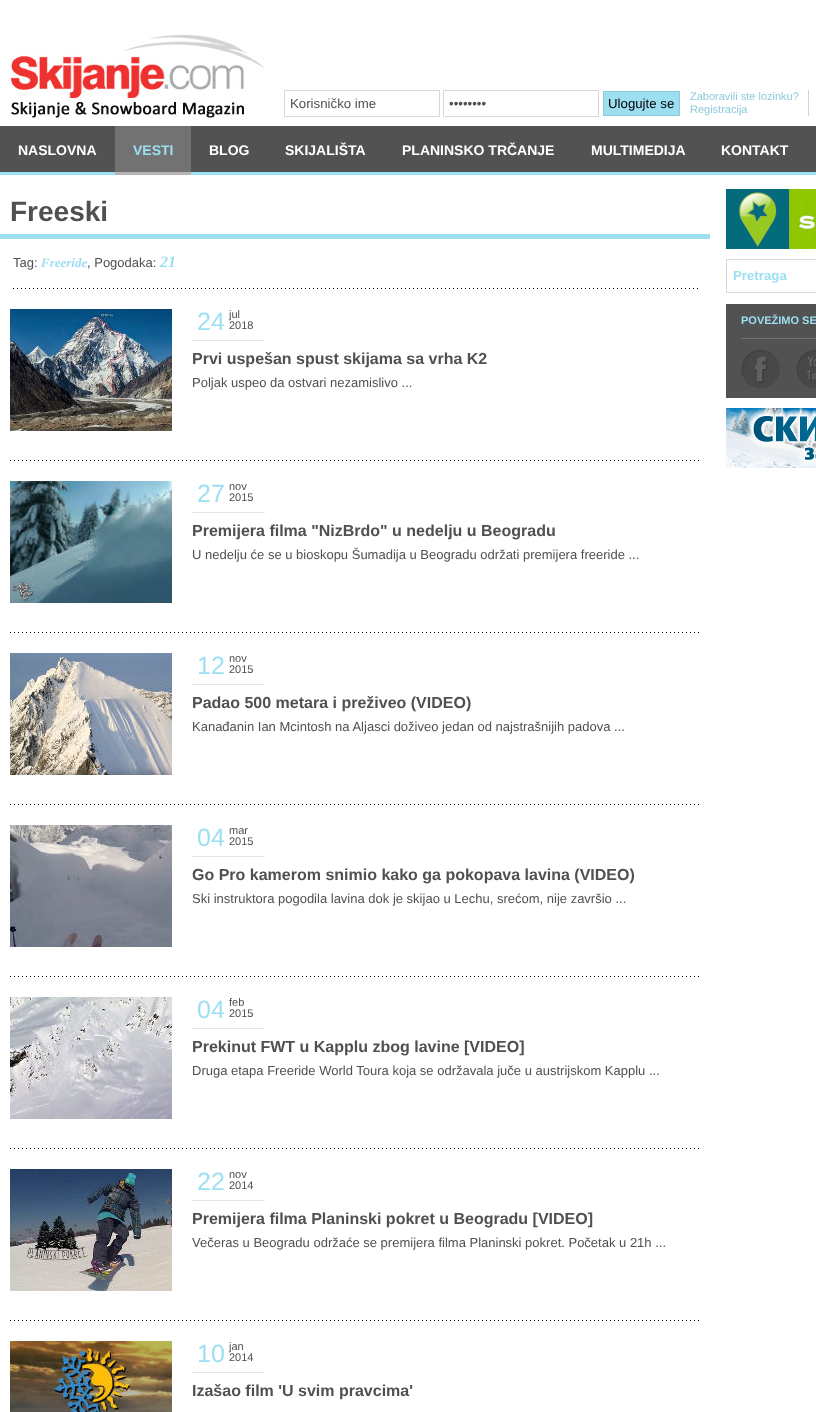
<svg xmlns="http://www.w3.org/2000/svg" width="816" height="1412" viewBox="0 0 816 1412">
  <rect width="100%" height="100%" fill="#fff"/>
  <image x="10" y="35" width="254" height="83" href="img/1.png"/>
  <path d="M284.5 90.5h155v26H284.5z" fill="none" stroke="#d7d7d7"/>
  <path d="M443.5 90.5h155v26H443.5z" fill="none" stroke="#d7d7d7"/>
  <path d="M603.5 91.5h76v24H603.5z" fill="#9bdff1" stroke="#8bc9db"/>
  <path d="M808 90h1v26H808z" fill="#d3d3d3"/>
  <image x="0" y="126" width="816" height="49" href="img/2.png"/>
  <path d="M115 126h76v46H115z" fill="#727272"/>
  <path d="M115 172h76v3H115z" fill="#b5b5b5"/>
  <path d="M0 234h710v5H0z" fill="#9bdff1"/>
  <image x="13" y="288" width="685" height="1" href="img/3.png"/>
  <image x="10" y="460" width="689" height="1" href="img/4.png"/>
  <image x="10" y="309" width="162" height="122" href="img/5.png"/>
  <path d="M192 340h73v1H192z" fill="#e5e5e5"/>
  <image x="10" y="632" width="689" height="1" href="img/4.png"/>
  <image x="10" y="481" width="162" height="122" href="img/6.png"/>
  <path d="M192 512h73v1H192z" fill="#e5e5e5"/>
  <image x="10" y="804" width="689" height="1" href="img/4.png"/>
  <image x="10" y="653" width="162" height="122" href="img/7.png"/>
  <path d="M192 684h73v1H192z" fill="#e5e5e5"/>
  <image x="10" y="976" width="689" height="1" href="img/4.png"/>
  <image x="10" y="825" width="162" height="122" href="img/8.png"/>
  <path d="M192 856h73v1H192z" fill="#e5e5e5"/>
  <image x="10" y="1148" width="689" height="1" href="img/4.png"/>
  <image x="10" y="997" width="162" height="122" href="img/9.png"/>
  <path d="M192 1028h73v1H192z" fill="#e5e5e5"/>
  <image x="10" y="1320" width="689" height="1" href="img/4.png"/>
  <image x="10" y="1169" width="162" height="122" href="img/10.png"/>
  <path d="M192 1200h73v1H192z" fill="#e5e5e5"/>
  <image x="10" y="1341" width="162" height="71" href="img/11.png"/>
  <path d="M192 1372h73v1H192z" fill="#e5e5e5"/>
  <image x="726" y="189" width="90" height="60" href="img/12.png"/>
  <path d="M726.5 259.5h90v33H726.5z" fill="none" stroke="#d7d7d7"/>
  <path d="M726 304h90v94H726z" fill="#525252"/>
  <path d="M741 338h75v1H741z" fill="#727272"/>
  <image x="741" y="350" width="39" height="38" href="img/13.png"/>
  <image x="796" y="350" width="20" height="38" href="img/14.png"/>
  <image x="726" y="408" width="90" height="60" href="img/15.png"/>
  <g font-family="Liberation Sans" font-size="13.25" fill="#505050">
    <text x="290" y="108">Korisničko ime</text>
    <text x="449" y="108">••••••••</text>
  </g>
  <text x="608" y="108" font-family="Liberation Sans" font-size="13.25" fill="#000">Ulogujte se</text>
  <g font-family="Liberation Sans" font-size="11" fill="#8bc9db">
    <text x="690" y="100">Zaboravili ste lozinku?</text>
    <text x="690" y="113">Registracija</text>
  </g>
  <text x="18" y="155" font-family="Liberation Sans" font-size="14" font-weight="bold" fill="#fff">NASLOVNA</text>
  <text x="133" y="155" font-family="Liberation Sans" font-size="14" font-weight="bold" fill="#9cdff2">VESTI</text>
  <g font-family="Liberation Sans" font-size="14" font-weight="bold" fill="#fff">
    <text x="209" y="155">BLOG</text>
    <text x="285" y="155">SKIJALIŠTA</text>
    <text x="402" y="155">PLANINSKO TRČANJE</text>
    <text x="591" y="155">MULTIMEDIJA</text>
    <text x="721" y="155">KONTAKT</text>
  </g>
  <text x="10" y="221" font-family="Liberation Sans" font-size="28" font-weight="bold" fill="#505050">Freeski</text>
  <text x="13" y="267" font-family="Liberation Sans" font-size="13" fill="#505050">Tag:</text>
  <text x="41" y="267" font-family="Liberation Serif" font-size="13" font-weight="bold" font-style="italic" fill="#9cdff2">Freeride</text>
  <text x="87" y="267" font-family="Liberation Sans" font-size="13" fill="#505050">, Pogodaka:</text>
  <text x="160" y="267" font-family="Liberation Serif" font-size="16" font-weight="bold" font-style="italic" fill="#9cdff2">21</text>
  <text x="197" y="330" font-family="Liberation Sans" font-size="25" fill="#9cdff2">24</text>
  <g font-family="Liberation Sans" font-size="11" fill="#505050">
    <text x="229" y="318">jul</text>
    <text x="229" y="329">2018</text>
  </g>
  <text x="192" y="364" font-family="Liberation Sans" font-size="16" font-weight="bold" fill="#505050">Prvi uspešan spust skijama sa vrha K2</text>
  <text x="192" y="387" font-family="Liberation Sans" font-size="13" fill="#505050">Poljak uspeo da ostvari nezamislivo ...</text>
  <text x="197" y="502" font-family="Liberation Sans" font-size="25" fill="#9cdff2">27</text>
  <g font-family="Liberation Sans" font-size="11" fill="#505050">
    <text x="229" y="490">nov</text>
    <text x="229" y="501">2015</text>
  </g>
  <text x="192" y="536" font-family="Liberation Sans" font-size="16" font-weight="bold" fill="#505050">Premijera filma "NizBrdo" u nedelju u Beogradu</text>
  <text x="192" y="559" font-family="Liberation Sans" font-size="13" fill="#505050">U nedelju će se u bioskopu Šumadija u Beogradu održati premijera freeride ...</text>
  <text x="197" y="674" font-family="Liberation Sans" font-size="25" fill="#9cdff2">12</text>
  <g font-family="Liberation Sans" font-size="11" fill="#505050">
    <text x="229" y="662">nov</text>
    <text x="229" y="673">2015</text>
  </g>
  <text x="192" y="708" font-family="Liberation Sans" font-size="16" font-weight="bold" fill="#505050">Padao 500 metara i preživeo (VIDEO)</text>
  <text x="192" y="731" font-family="Liberation Sans" font-size="13" fill="#505050">Kanađanin Ian Mcintosh na Aljasci doživeo jedan od najstrašnijih padova ...</text>
  <text x="197" y="846" font-family="Liberation Sans" font-size="25" fill="#9cdff2">04</text>
  <g font-family="Liberation Sans" font-size="11" fill="#505050">
    <text x="229" y="834">mar</text>
    <text x="229" y="845">2015</text>
  </g>
  <text x="192" y="880" font-family="Liberation Sans" font-size="16" font-weight="bold" fill="#505050">Go Pro kamerom snimio kako ga pokopava lavina (VIDEO)</text>
  <text x="192" y="903" font-family="Liberation Sans" font-size="13" fill="#505050">Ski instruktora pogodila lavina dok je skijao u Lechu, srećom, nije završio ...</text>
  <text x="197" y="1018" font-family="Liberation Sans" font-size="25" fill="#9cdff2">04</text>
  <g font-family="Liberation Sans" font-size="11" fill="#505050">
    <text x="229" y="1006">feb</text>
    <text x="229" y="1017">2015</text>
  </g>
  <text x="192" y="1052" font-family="Liberation Sans" font-size="16" font-weight="bold" fill="#505050">Prekinut FWT u Kapplu zbog lavine [VIDEO]</text>
  <text x="192" y="1075" font-family="Liberation Sans" font-size="13" fill="#505050">Druga etapa Freeride World Toura koja se održavala juče u austrijskom Kapplu ...</text>
  <text x="197" y="1190" font-family="Liberation Sans" font-size="25" fill="#9cdff2">22</text>
  <g font-family="Liberation Sans" font-size="11" fill="#505050">
    <text x="229" y="1178">nov</text>
    <text x="229" y="1189">2014</text>
  </g>
  <text x="192" y="1224" font-family="Liberation Sans" font-size="16" font-weight="bold" fill="#505050">Premijera filma Planinski pokret u Beogradu [VIDEO]</text>
  <text x="192" y="1247" font-family="Liberation Sans" font-size="13" fill="#505050">Večeras u Beogradu održaće se premijera filma Planinski pokret. Početak u 21h ...</text>
  <text x="197" y="1362" font-family="Liberation Sans" font-size="25" fill="#9cdff2">10</text>
  <g font-family="Liberation Sans" font-size="11" fill="#505050">
    <text x="229" y="1350">jan</text>
    <text x="229" y="1361">2014</text>
  </g>
  <text x="192" y="1396" font-family="Liberation Sans" font-size="16" font-weight="bold" fill="#505050">Izašao film 'U svim pravcima'</text>
  <text x="733" y="280" font-family="Liberation Sans" font-size="13.25" font-weight="bold" fill="#9cdff2">Pretraga</text>
  <text x="741" y="324" font-family="Liberation Sans" font-size="11" font-weight="bold" fill="#9cdff2">POVEŽIMO SE</text>
</svg>
